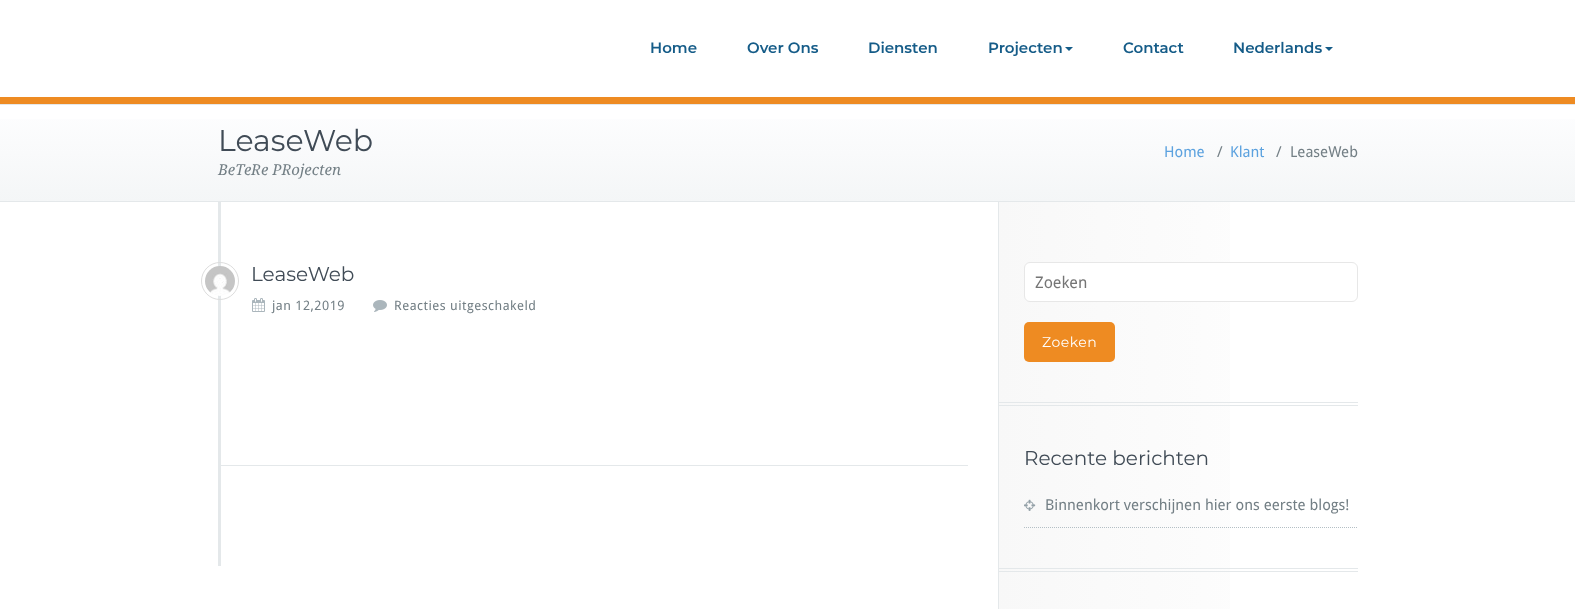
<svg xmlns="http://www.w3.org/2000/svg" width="1575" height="609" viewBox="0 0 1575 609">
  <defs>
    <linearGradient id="g1" gradientUnits="userSpaceOnUse" x1="788" y1="105" x2="788" y2="201"><stop offset="0" stop-color="#fefeff"/><stop offset="1" stop-color="#f4f6f7"/></linearGradient>
    <linearGradient id="g2" gradientUnits="userSpaceOnUse" x1="999" y1="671" x2="1358" y2="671"><stop offset="0" stop-color="#f8f8f8"/><stop offset="1" stop-color="#fff"/></linearGradient>
  </defs>
  <rect width="100%" height="100%" fill="#fff"/>
  <path d="M0 97h1575v7H0z" fill="#ee8b22"/>
  <path d="M1065 47H1073L1069 51Z" fill="#155c88"/>
  <path d="M1325 47H1333L1329 51Z" fill="#155c88"/>
  <path d="M0 119h1575v82H0z" fill="url(#g1)"/>
  <path d="M0 104h1575v1H0z" fill="#e4e8ea"/>
  <path d="M0 201h1575v1H0z" fill="#e4e8ea"/>
  <path d="M218 202h3v364H218z" fill="#e4e8ea"/>
  <path d="M221 465h747v1H221z" fill="#e4e8ea"/>
  <circle cx="220" cy="281" r="18.5" fill="none" stroke="#ddd"/>
  <image x="205" y="266" width="30" height="30" href="img/1.png"/>
  <image x="252" y="298" width="13" height="14" href="img/2.png"/>
  <image x="373" y="300" width="14" height="12" href="img/3.png"/>
  <path d="M999 202h231v407H999z" fill="url(#g2)"/>
  <path d="M998 202h1v407H998z" fill="#e4e8ea"/>
  <path d="M999 402h359v1H999z" fill="#e4e8ea"/>
  <path d="M999 405h359v1H999z" fill="#e4e8ea"/>
  <rect x="1024.5" y="262.5" width="333" height="39" rx="5.5" fill="#fff" stroke="#e7e7e7"/>
  <rect x="1024" y="322" width="91" height="40" rx="5" fill="#ee8b22"/>
  <path d="M999 568h359v1H999z" fill="#e4e8ea"/>
  <path d="M999 571h359v1H999z" fill="#e4e8ea"/>
  <path d="M1024 527.5H1358" fill="none" stroke="#b4bfc5" stroke-dasharray="1 1"/>
  <image x="1024" y="499" width="12" height="12" href="img/4.png"/>
  <g font-family="Montserrat" font-size="15" font-weight="600" fill="#155c88">
    <text x="650" y="53">Home</text>
    <text x="747" y="53">Over Ons</text>
    <text x="868" y="53">Diensten</text>
    <text x="988" y="53">Projecten</text>
    <text x="1123" y="53">Contact</text>
    <text x="1233" y="53">Nederlands</text>
  </g>
  <text x="218" y="151" font-family="Montserrat" font-size="30" fill="#404b56">LeaseWeb</text>
  <text x="218" y="175" font-family="Droid Serif" font-size="15" font-style="italic" fill="#737f85">BeTeRe PRojecten</text>
  <text x="1164" y="157" font-family="Droid Sans" font-size="15" fill="#5ca2df">Home</text>
  <text x="1217" y="157" font-family="Droid Sans" font-size="15" fill="#737f85">/</text>
  <text x="1230" y="157" font-family="Droid Sans" font-size="15" fill="#5ca2df">Klant</text>
  <g font-family="Droid Sans" font-size="15" fill="#737f85">
    <text x="1276" y="157">/</text>
    <text x="1290" y="157">LeaseWeb</text>
  </g>
  <text x="251" y="281" font-family="Montserrat" font-size="20" fill="#404b56">LeaseWeb</text>
  <g font-family="Droid Sans" font-size="13" letter-spacing="0.5" fill="#737f85">
    <text x="272" y="310">jan 12,2019</text>
    <text x="394" y="310">Reacties uitgeschakeld</text>
  </g>
  <text x="1035" y="288" font-family="Droid Sans" font-size="16" fill="#757575">Zoeken</text>
  <text x="1042" y="347" font-family="Montserrat" font-size="14" letter-spacing="0.5" fill="#fff">Zoeken</text>
  <text x="1024" y="465" font-family="Montserrat" font-size="20" fill="#404b56">Recente berichten</text>
  <text x="1045" y="510" font-family="Droid Sans" font-size="15" fill="#737f85">Binnenkort verschijnen hier ons eerste blogs!</text>
</svg>
